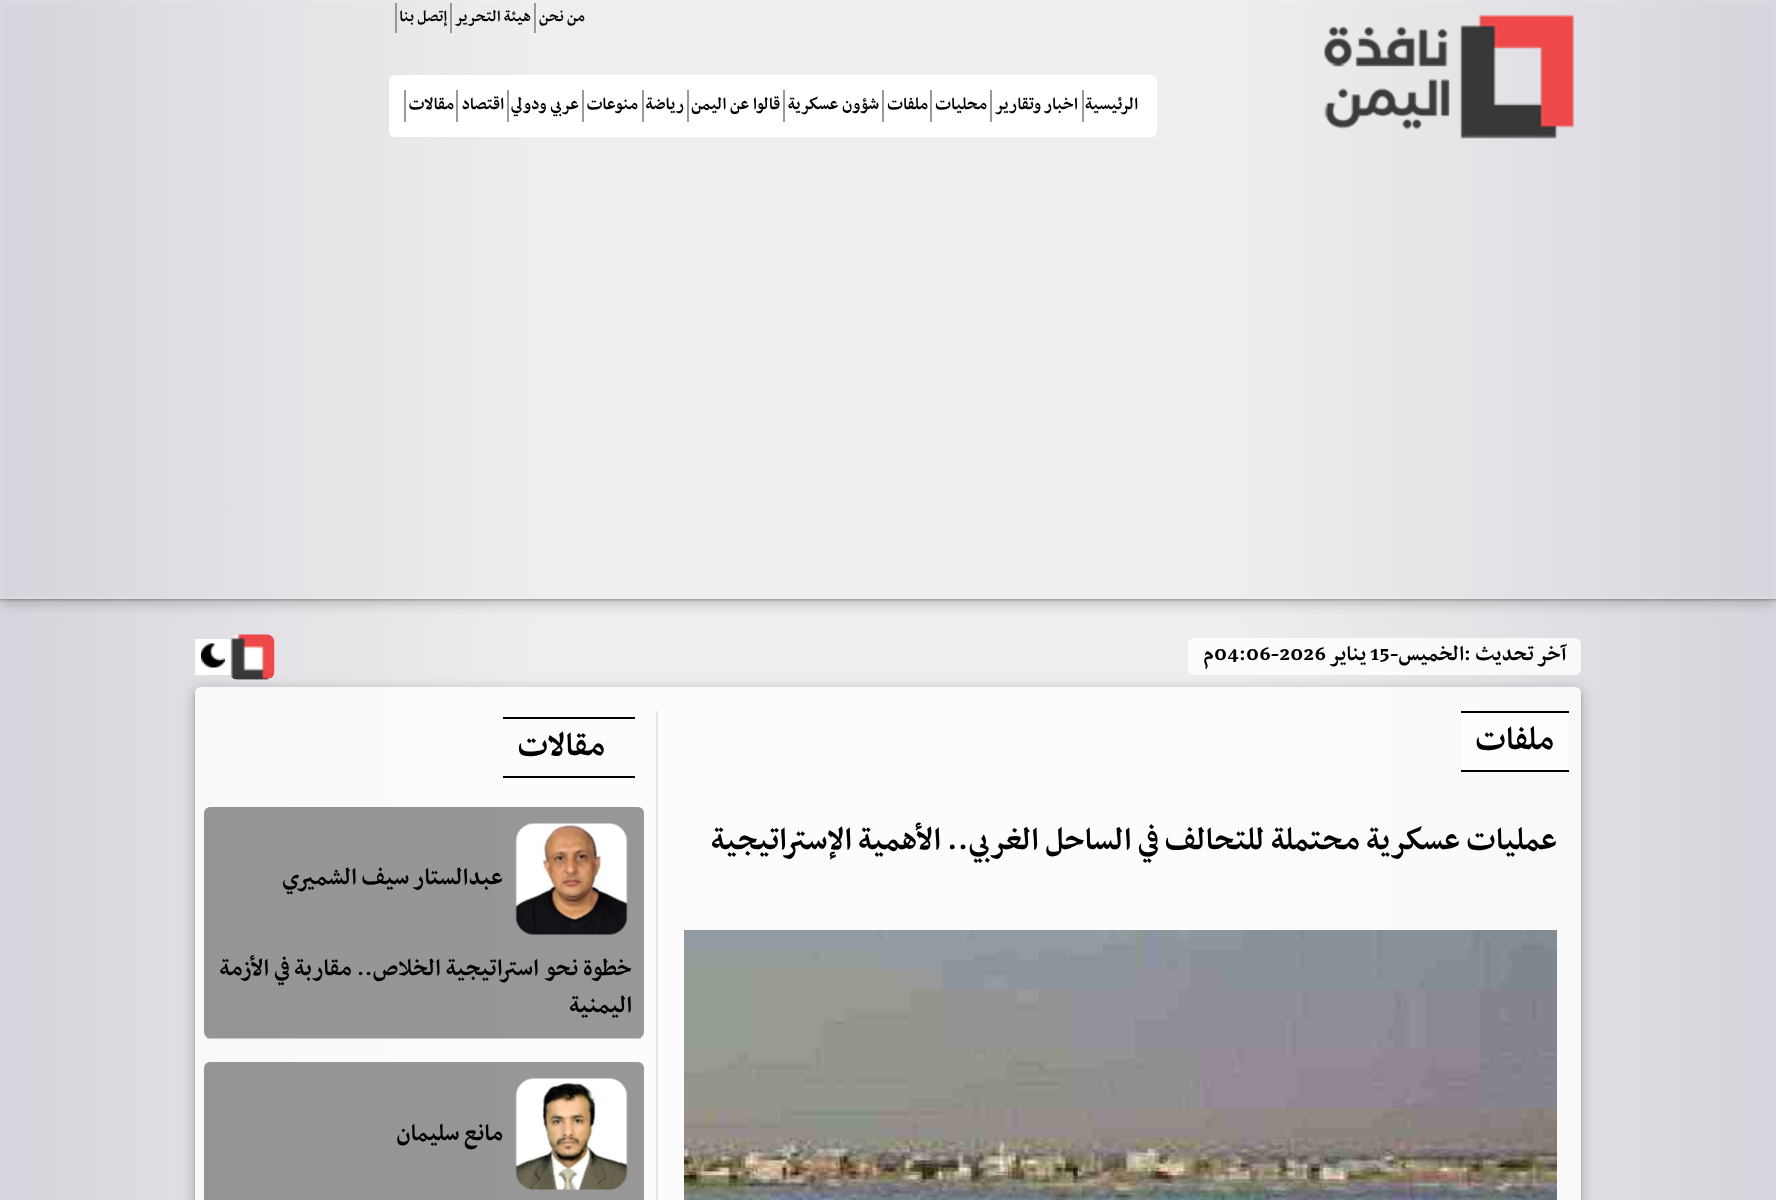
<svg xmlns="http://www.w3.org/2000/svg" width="1776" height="1200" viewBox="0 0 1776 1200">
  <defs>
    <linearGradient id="g1" gradientUnits="userSpaceOnUse" x1="0" y1="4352" x2="1776" y2="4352"><stop offset="0" stop-color="#d7d5dd"/><stop offset="0.3" stop-color="#eee"/><stop offset="0.7" stop-color="#eee"/><stop offset="1" stop-color="#d7d5dd"/></linearGradient>
    <clipPath id="clip1"><path d="M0 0H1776V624H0ZM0 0H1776V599H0Z" clip-rule="evenodd"/></clipPath>
    <clipPath id="clip2"><path d="M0 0H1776V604H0ZM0 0H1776V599H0Z" clip-rule="evenodd"/></clipPath>
    <clipPath id="clip3"><path d="M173 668H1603V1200H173ZM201 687H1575C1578.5 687 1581 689.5 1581 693V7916C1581 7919.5 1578.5 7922 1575 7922H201C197.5 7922 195 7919.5 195 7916V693C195 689.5 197.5 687 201 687Z" clip-rule="evenodd"/></clipPath>
    <clipPath id="clip4"><path d="M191 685H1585V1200H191ZM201 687H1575C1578.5 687 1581 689.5 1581 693V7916C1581 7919.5 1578.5 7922 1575 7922H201C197.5 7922 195 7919.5 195 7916V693C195 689.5 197.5 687 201 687Z" clip-rule="evenodd"/></clipPath>
  </defs>
  <rect width="100%" height="100%" fill="#fff"/>
  <path d="M0 0h1776v1200H0z" fill="url(#g1)"/>
  <g clip-path="url(#clip1)">
    <path d="M0 3h1776v599H0z" fill="#00000040" filter="blur(7px)"/>
  </g>
  <g clip-path="url(#clip2)">
    <path d="M0 2h1776v598H0z" fill="#00000040" filter="blur(1px)"/>
  </g>
  <path d="M1 1h1774v597H1z" fill="none" stroke="#ffffff1a" stroke-width="2"/>
  <image x="1324" y="14" width="250" height="125" href="img/1.png"/>
  <path d="M534 3h2v30H534z" fill="#999"/>
  <path d="M536 6h2v30H536z" fill="#f3f3f3"/>
  <path d="M450 3h2v30H450z" fill="#999"/>
  <path d="M452 6h2v30H452z" fill="#f1f0f1"/>
  <path d="M395 3h2v30H395z" fill="#999"/>
  <rect x="389" y="75" width="768" height="62" rx="6" fill="#fff"/>
  <path d="M1082 90h2v32H1082z" fill="#999"/>
  <path d="M990 90h2v32H990z" fill="#999"/>
  <path d="M930 90h2v32H930z" fill="#999"/>
  <path d="M882 90h2v32H882z" fill="#999"/>
  <path d="M783 90h2v32H783z" fill="#999"/>
  <path d="M687 90h2v32H687z" fill="#999"/>
  <path d="M642 90h2v32H642z" fill="#999"/>
  <path d="M582 90h2v32H582z" fill="#999"/>
  <path d="M507 90h2v32H507z" fill="#999"/>
  <path d="M456 90h2v32H456z" fill="#999"/>
  <path d="M404 90h2v32H404z" fill="#999"/>
  <rect x="1188" y="638" width="393" height="37" rx="6" fill="#ffffffcc"/>
  <path d="M195 639h37v36H195z" fill="#fff"/>
  <rect x="230" y="635" width="45" height="45" rx="8" fill="#fff"/>
  <image x="230" y="634" width="45" height="46" href="img/2.png"/>
  <image x="201" y="643" width="24" height="25" href="img/3.png"/>
  <g clip-path="url(#clip3)">
    <rect x="195" y="690" width="1386" height="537" rx="6" fill="#00000040" filter="blur(7px)"/>
  </g>
  <g clip-path="url(#clip4)">
    <rect x="195" y="689" width="1386" height="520" rx="6" fill="#00000040" filter="blur(1px)"/>
  </g>
  <rect x="195" y="687" width="1386" height="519" rx="6" fill="#ffffffcc"/>
  <path d="M656 711h2v489H656z" fill="#e6e7e8"/>
  <path d="M1461 713h108v57H1461z" fill="#fefefe"/>
  <path d="M1461 711h108v2H1461z" fill="#000"/>
  <path d="M1461 770h108v2H1461z" fill="#000"/>
  <image x="684" y="930" width="873" height="270" href="img/4.png"/>
  <path d="M503 717h132v2H503z" fill="#000"/>
  <path d="M503 776h132v2H503z" fill="#000"/>
  <rect x="204" y="807" width="440" height="231" rx="6" fill="#32323280"/>
  <path d="M207 1037h434v2H207z" fill="#96969680"/>
  <image x="515" y="823" width="113" height="112" href="img/5.png"/>
  <rect x="204" y="1062" width="440" height="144" rx="6" fill="#32323280"/>
  <image x="515" y="1078" width="113" height="112" href="img/6.png"/>
  <g font-family="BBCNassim" font-size="18" font-weight="bold" direction="rtl" fill="#000">
    <text x="585" y="21">من نحن</text>
    <text x="531" y="21">هيئة التحرير</text>
    <text x="447" y="21">إتصل بنا</text>
  </g>
  <g font-family="BBCNassim" font-size="19.5" font-weight="bold" direction="rtl" fill="#000">
    <text x="1138" y="109">الرئيسية</text>
    <text x="1078" y="109">اخبار وتقارير</text>
    <text x="987" y="109">محليات</text>
    <text x="928" y="109">ملفات</text>
    <text x="879" y="109">شؤون عسكرية</text>
    <text x="780" y="109">قالوا عن اليمن</text>
    <text x="684" y="109">رياضة</text>
    <text x="638" y="109">منوعات</text>
    <text x="579" y="109">عربي ودولي</text>
    <text x="504" y="109">اقتصاد</text>
    <text x="454" y="109">مقالات</text>
  </g>
  <g font-family="BBCNassim" font-size="24" font-weight="bold" direction="rtl" fill="#000">
    <text x="1566" y="660">آخر تحديث :</text>
    <text x="1464" y="660">الخميس-</text>
  </g>
  <text x="1370" y="660" font-family="BBCNassim" font-size="24" font-weight="bold" fill="#000">15</text>
  <text x="1366" y="660" font-family="BBCNassim" font-size="24" font-weight="bold" direction="rtl" fill="#000">يناير</text>
  <text x="1214" y="660" font-family="BBCNassim" font-size="24" font-weight="bold" fill="#000">04:06-2026</text>
  <text x="1214" y="660" font-family="BBCNassim" font-size="24" font-weight="bold" direction="rtl" fill="#000">م</text>
  <text x="1554" y="749" font-family="BBCNassim" font-size="37.5" font-weight="bold" direction="rtl" fill="#000">ملفات</text>
  <text x="1557" y="849" font-family="BBCNassim" font-size="36" font-weight="bold" direction="rtl" fill="#000">عمليات عسكرية محتملة للتحالف في الساحل الغربي.. الأهمية الإستراتيجية</text>
  <text x="605" y="755" font-family="BBCNassim" font-size="37.5" font-weight="bold" direction="rtl" fill="#000">مقالات</text>
  <g font-family="BBCNassim" font-size="27" font-weight="bold" direction="rtl" fill="#000">
    <text x="503" y="884">عبدالستار سيف الشميري</text>
    <text x="632" y="975">خطوة نحو استراتيجية الخلاص.. مقاربة في الأزمة</text>
    <text x="632" y="1012">اليمنية</text>
    <text x="503" y="1140">مانع سليمان</text>
  </g>
</svg>
